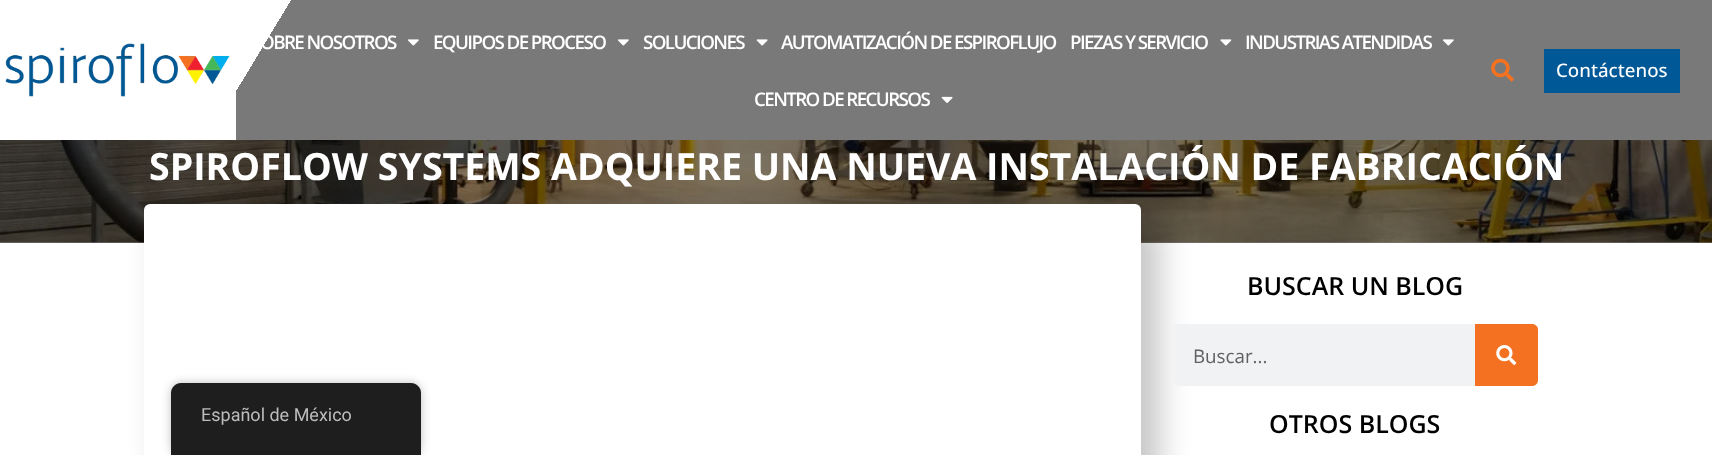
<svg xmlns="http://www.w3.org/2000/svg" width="1712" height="455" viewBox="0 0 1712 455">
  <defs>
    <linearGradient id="g1" gradientUnits="userSpaceOnUse" x1="237" y1="-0.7" x2="472" y2="141"><stop offset="0.17" stop-color="#fff"/><stop offset="0.17" stop-color="#7a7979"/></linearGradient>
  </defs>
  <rect width="100%" height="100%" fill="#fff"/>
  <path d="M0 242h1712v1H0z" fill="#808080"/>
  <path d="M473 0h1239v140H473z" fill="#7a7979"/>
  <image x="5" y="43" width="225" height="54" href="img/1.png"/>
  <path d="M236 0h237v140H236z" fill="url(#g1)"/>
  <image x="408" y="39" width="11" height="7" href="img/2.png"/>
  <image x="618" y="39" width="11" height="7" href="img/2.png"/>
  <image x="756" y="39" width="12" height="7" href="img/3.png"/>
  <image x="1220" y="39" width="12" height="7" href="img/4.png"/>
  <image x="1443" y="39" width="11" height="7" href="img/2.png"/>
  <image x="941" y="96" width="12" height="7" href="img/5.png"/>
  <image x="1491" y="58" width="23" height="24" href="img/6.png"/>
  <path d="M1544 49h136v44H1544z" fill="#005897"/>
  <image x="0" y="140" width="1712" height="103" href="img/7.png"/>
  <rect x="161" y="221" width="998" height="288" rx="6" fill="#0000003b" filter="blur(16px)"/>
  <rect x="144" y="204" width="997" height="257" rx="6" fill="#fff"/>
  <rect x="1173" y="324" width="365" height="62" rx="6" fill="#f1f2f3"/>
  <path d="M1475 324H1532C1535.5 324 1538 326.5 1538 330V380C1538 383.5 1535.5 386 1532 386H1475Z" fill="#f47121"/>
  <image x="1496" y="345" width="21" height="20" href="img/8.png"/>
  <rect x="171" y="383" width="250" height="72" rx="10" fill="#00000040" filter="blur(5px)"/>
  <path d="M181 383H411C416.5 383 421 387.5 421 393V455H171V393C171 387.5 175.5 383 181 383Z" fill="#1e1e1e"/>
  <g font-family="Open Sans" font-size="18.75" font-weight="600" letter-spacing="-1.6" fill="#fff">
    <text x="260" y="49">OBRE NOSOTROS</text>
    <text x="433" y="49">EQUIPOS DE PROCESO</text>
    <text x="643" y="49">SOLUCIONES</text>
    <text x="781" y="49">AUTOMATIZACIÓN DE ESPIROFLUJO</text>
    <text x="1070" y="49">PIEZAS Y SERVICIO</text>
    <text x="1245" y="49">INDUSTRIAS ATENDIDAS</text>
    <text x="754" y="106">CENTRO DE RECURSOS</text>
  </g>
  <text x="1556" y="77" font-family="Open Sans" font-size="18.75" font-weight="500" fill="#fff">Contáctenos</text>
  <text x="149" y="180" font-family="Open Sans" font-size="37.5" font-weight="bold" fill="#fff">SPIROFLOW SYSTEMS ADQUIERE UNA NUEVA INSTALACIÓN DE FABRICACIÓN</text>
  <text x="1247" y="295" font-family="Open Sans" font-size="25" font-weight="600" fill="#000">BUSCAR UN BLOG</text>
  <text x="1193" y="363" font-family="Open Sans" font-size="18.75" fill="#606161">Buscar...</text>
  <text x="1269" y="433" font-family="Open Sans" font-size="25" font-weight="600" fill="#000">OTROS BLOGS</text>
  <text x="201" y="421" font-family="Roboto" font-size="18" fill="#bdbdbd">Español de México</text>
</svg>
